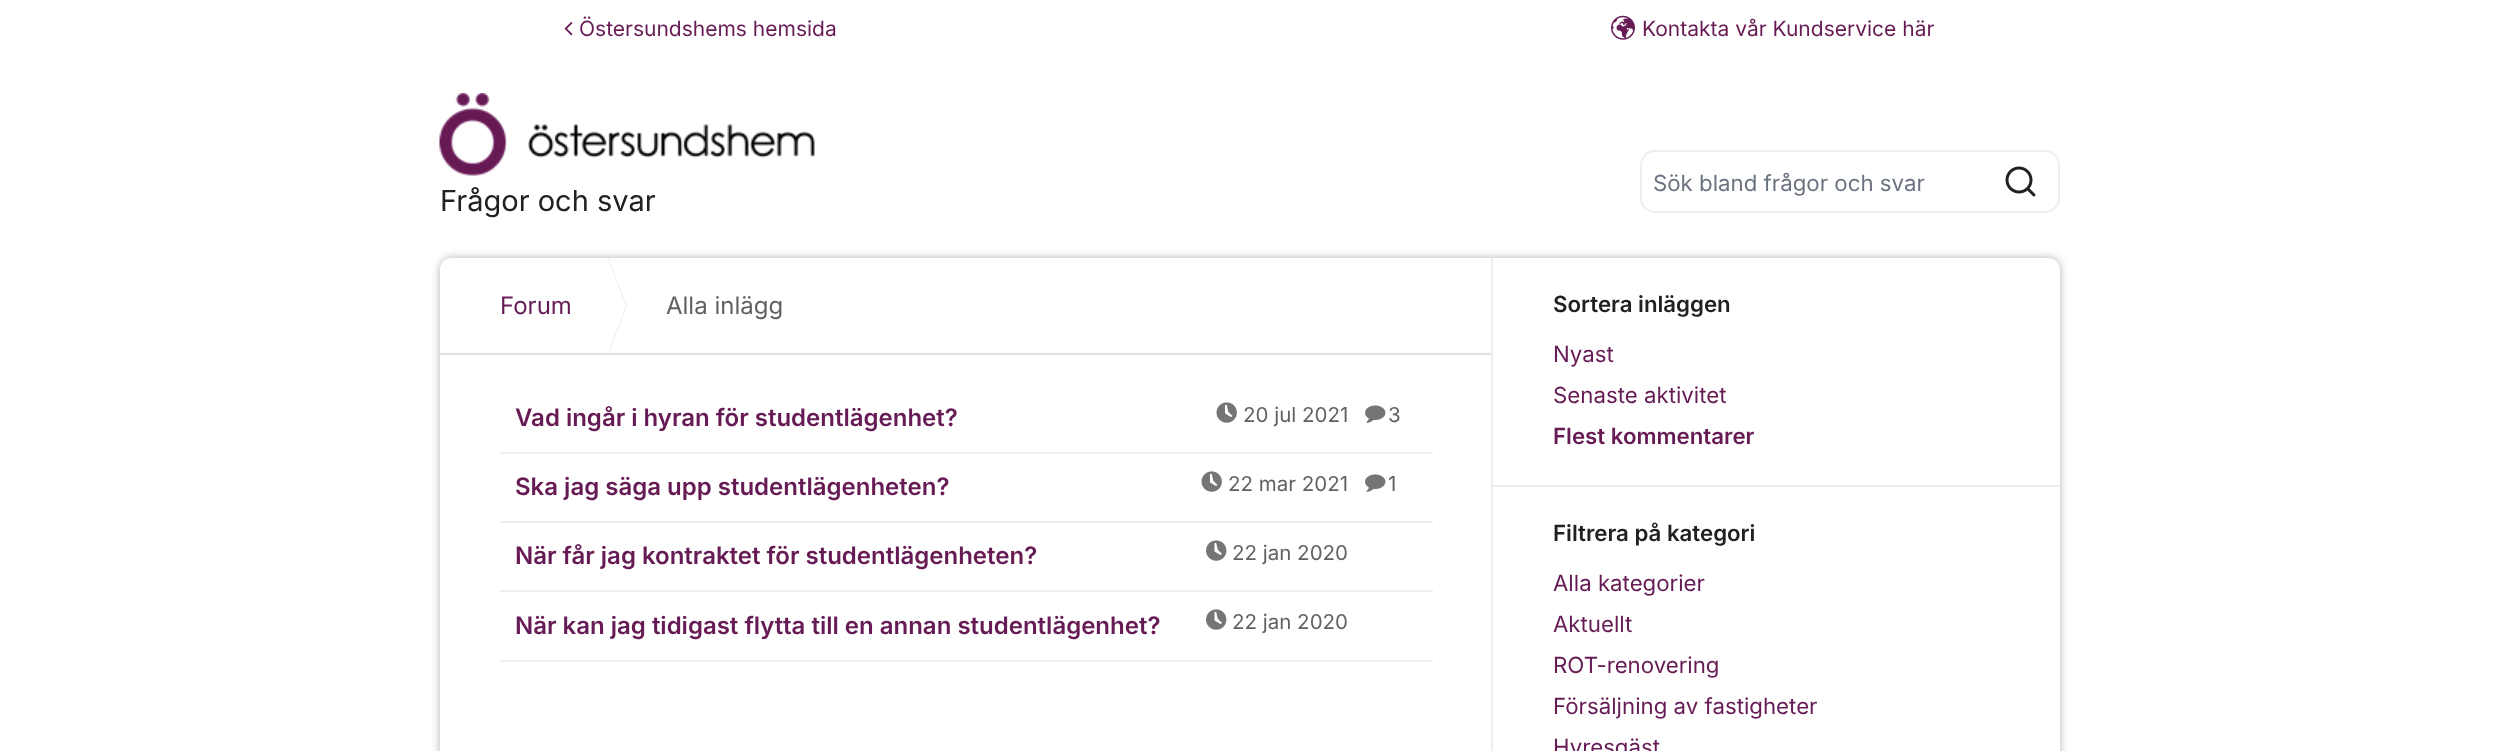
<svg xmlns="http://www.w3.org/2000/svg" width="2498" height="751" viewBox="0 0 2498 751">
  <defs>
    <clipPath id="clip1"><path d="M440 258h1053v95H440z"/></clipPath>
  </defs>
  <rect width="100%" height="100%" fill="#fff"/>
  <image x="564" y="22" width="9" height="14" href="img/1.png"/>
  <image x="1611" y="15" width="24" height="25" href="img/2.png"/>
  <rect x="1641" y="151" width="418" height="61" rx="14" fill="none" stroke="#eee" stroke-width="2"/>
  <image x="2005" y="166" width="31" height="31" href="img/3.png"/>
  <image x="439" y="93" width="376" height="83" href="img/4.png"/>
  <rect x="440" y="258" width="1620" height="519" rx="12" fill="#0000004d" filter="blur(4.5px)"/>
  <path d="M452 258H2048C2054.5 258 2060 263.5 2060 270V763H440V270C440 263.5 445.5 258 452 258Z" fill="#fff"/>
  <rect x="440" y="258" width="1053" height="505" rx="12" fill="#fff"/>
  <path d="M440 353h1053v2H440z" fill="#e0e0e0"/>
  <g clip-path="url(#clip1)">
    <path d="M604 366V246L627 306Z" fill="#eee"/>
    <path d="M603 366V246L626 306Z" fill="#fff"/>
  </g>
  <path d="M500 452h933v2H500z" fill="#eee"/>
  <image x="1216" y="402" width="21" height="21" href="img/5.png"/>
  <image x="1365" y="405" width="21" height="18" href="img/6.png"/>
  <path d="M500 521h933v2H500z" fill="#eee"/>
  <image x="1201" y="471" width="21" height="21" href="img/5.png"/>
  <image x="1365" y="474" width="21" height="18" href="img/6.png"/>
  <path d="M500 590h933v2H500z" fill="#eee"/>
  <image x="1206" y="540" width="21" height="21" href="img/7.png"/>
  <path d="M500 660h933v2H500z" fill="#eee"/>
  <image x="1206" y="609" width="21" height="21" href="img/7.png"/>
  <path d="M1491 258h2v493H1491z" fill="#eee"/>
  <path d="M1493 485h567v2H1493z" fill="#eee"/>
  <g font-family="Inter" font-size="21" fill="#661b54">
    <text x="579" y="36">Östersundshems hemsida</text>
    <text x="1642" y="36">Kontakta vår Kundservice här</text>
  </g>
  <text x="1653" y="191" font-family="Inter" font-size="22.25" fill="#6b7280">Sök bland frågor och svar</text>
  <text x="440" y="211" font-family="Inter" font-size="29" fill="#212121">Frågor och svar</text>
  <text x="500" y="314" font-family="Inter" font-size="24" fill="#661b54">Forum</text>
  <text x="666" y="314" font-family="Inter" font-size="24" fill="#616161">Alla inlägg</text>
  <text x="515" y="426" font-family="Inter" font-size="24" font-weight="600" fill="#661b54">Vad ingår i hyran för studentlägenhet?</text>
  <g font-family="Inter" font-size="20.5" fill="#616161">
    <text x="1243" y="422">20 jul 2021</text>
    <text x="1388" y="422">3</text>
  </g>
  <text x="515" y="495" font-family="Inter" font-size="24" font-weight="600" fill="#661b54">Ska jag säga upp studentlägenheten?</text>
  <g font-family="Inter" font-size="20.5" fill="#616161">
    <text x="1228" y="491">22 mar 2021</text>
    <text x="1388" y="491">1</text>
  </g>
  <text x="515" y="564" font-family="Inter" font-size="24" font-weight="600" fill="#661b54">När får jag kontraktet för studentlägenheten?</text>
  <text x="1232" y="560" font-family="Inter" font-size="20.5" fill="#616161">22 jan 2020</text>
  <text x="515" y="634" font-family="Inter" font-size="24" font-weight="600" fill="#661b54">När kan jag tidigast flytta till en annan studentlägenhet?</text>
  <text x="1232" y="629" font-family="Inter" font-size="20.5" fill="#616161">22 jan 2020</text>
  <text x="1553" y="312" font-family="Inter" font-size="22.25" font-weight="600" fill="#212121">Sortera inläggen</text>
  <g font-family="Inter" font-size="22.25" fill="#661b54">
    <text x="1553" y="362">Nyast</text>
    <text x="1553" y="403">Senaste aktivitet</text>
  </g>
  <text x="1553" y="444" font-family="Inter" font-size="22.25" font-weight="600" fill="#661b54">Flest kommentarer</text>
  <text x="1553" y="541" font-family="Inter" font-size="22.25" font-weight="600" fill="#212121">Filtrera på kategori</text>
  <g font-family="Inter" font-size="22.25" fill="#661b54">
    <text x="1553" y="591">Alla kategorier</text>
    <text x="1553" y="632">Aktuellt</text>
    <text x="1553" y="673">ROT-renovering</text>
    <text x="1553" y="714">Försäljning av fastigheter</text>
    <text x="1553" y="755">Hyresgäst</text>
  </g>
</svg>
